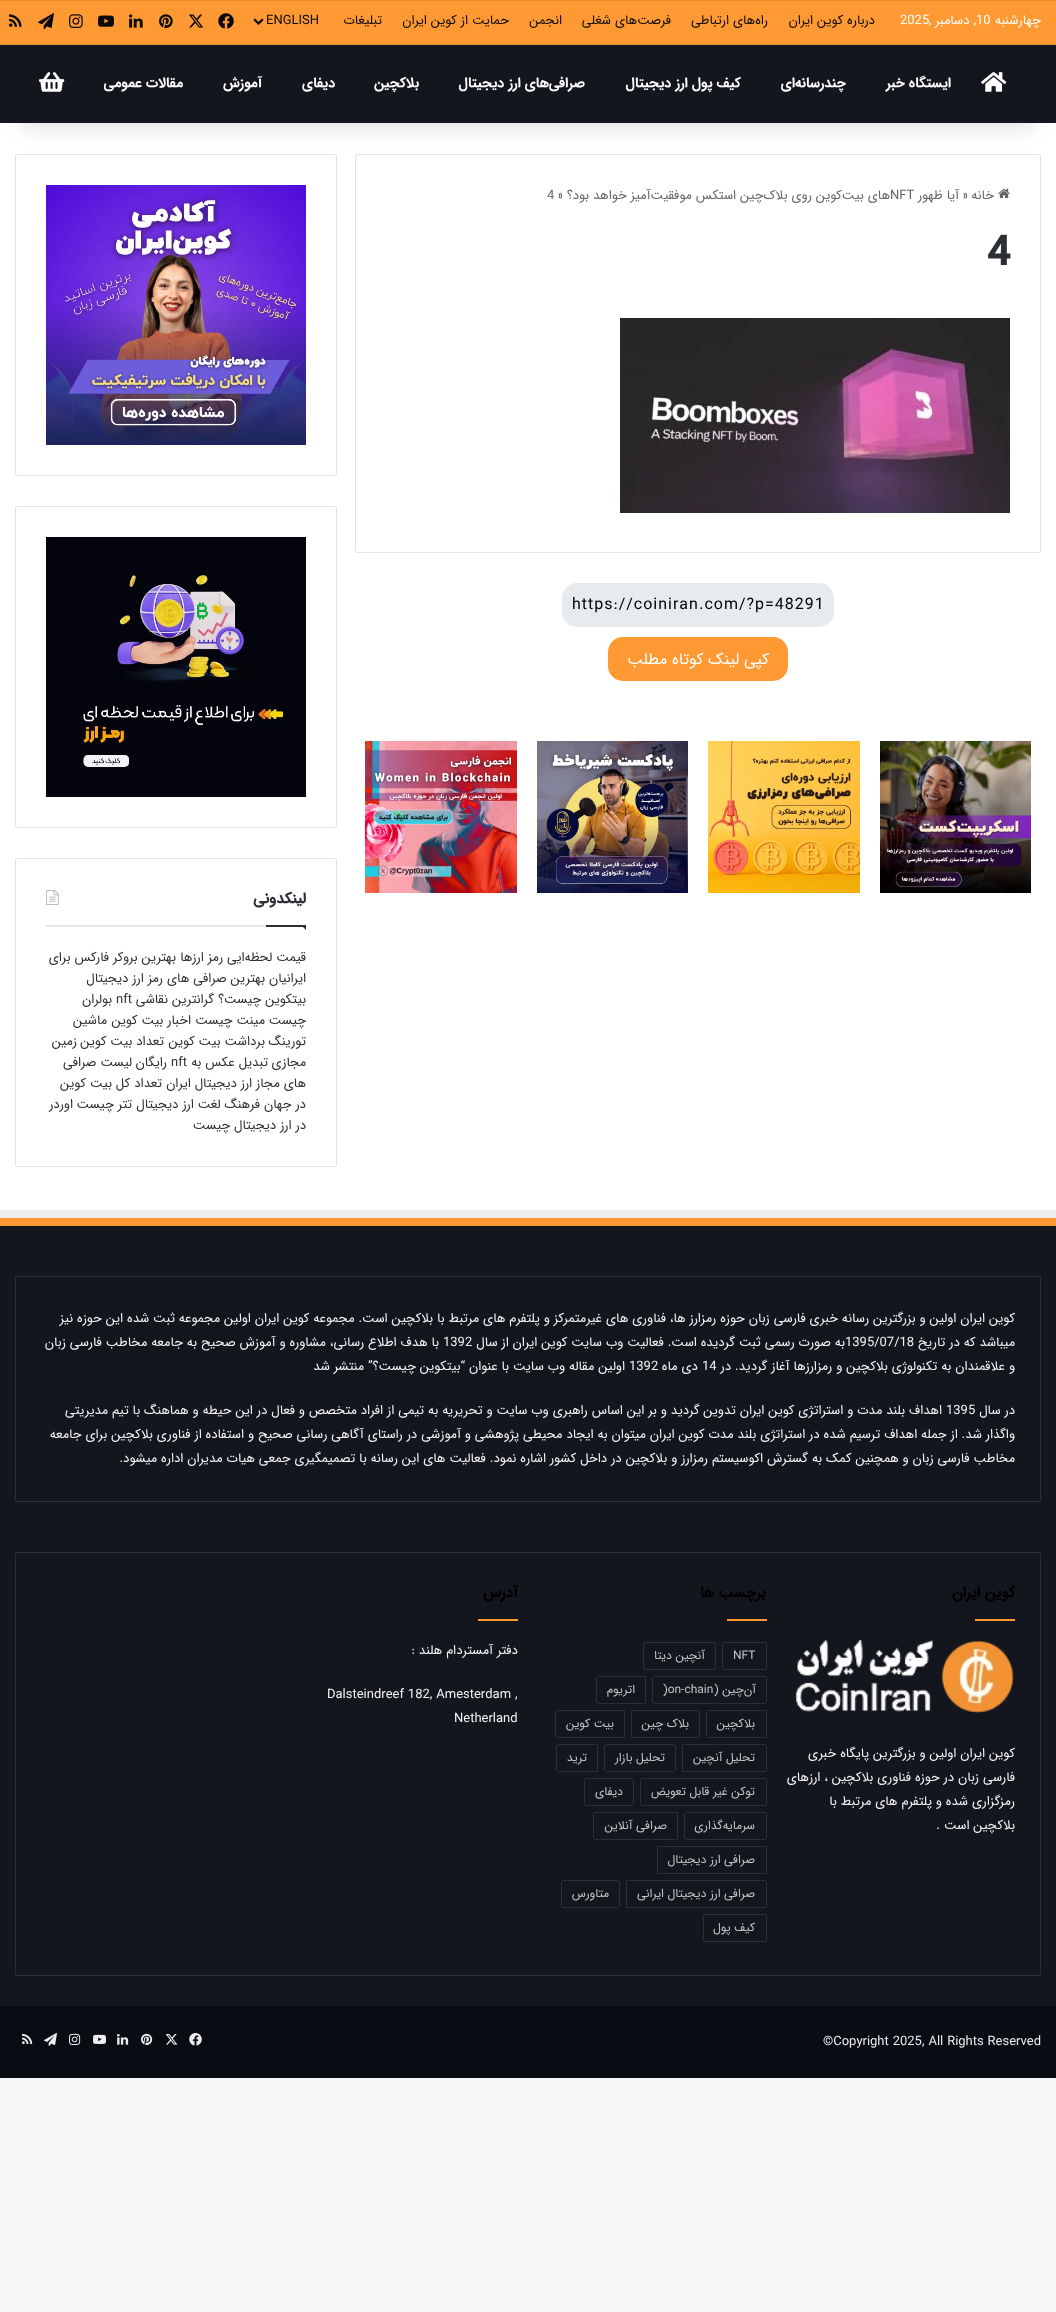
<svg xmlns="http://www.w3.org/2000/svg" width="1056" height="2312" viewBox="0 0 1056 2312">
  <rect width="100%" height="100%" fill="#f7f7f7"/>
  <path d="M0 123h1056v1087H0z" fill="#fff"/>
  <rect x="355.5" y="154.5" width="685" height="398" rx="1.5" fill="none" stroke="#e5e5e5"/>
  <rect x="15.5" y="154.5" width="321" height="321" rx="1.5" fill="none" stroke="#e5e5e5"/>
  <path d="M20 45h1016v84H20z" fill="#0000001a" filter="blur(10px)"/>
  <path d="M0 1h1056v43H0z" fill="#f93"/>
  <path d="M0 0h1056v1H0z" fill="#e68a2e"/>
  <path d="M0 44h1056v1H0z" fill="#e68a2e"/>
  <image x="253" y="18" width="11" height="7" href="img/1.png"/>
  <image x="218" y="13" width="16" height="16" href="img/2.png"/>
  <image x="189" y="14" width="15" height="14" href="img/3.png"/>
  <image x="159" y="14" width="14" height="14" href="img/4.png"/>
  <image x="129" y="14" width="14" height="14" href="img/5.png"/>
  <image x="98" y="15" width="16" height="12" href="img/6.png"/>
  <image x="69" y="14" width="14" height="14" href="img/7.png"/>
  <image x="38" y="13" width="16" height="17" href="img/8.png"/>
  <image x="9" y="14" width="13" height="13" href="img/9.png"/>
  <path d="M0 45h1056v78H0z" fill="#14161e"/>
  <image x="981" y="72" width="26" height="20" href="img/10.png"/>
  <image x="39" y="72" width="26" height="20" href="img/11.png"/>
  <image x="998" y="188" width="12" height="11" href="img/12.png"/>
  <image x="620" y="318" width="390" height="195" href="img/13.png"/>
  <rect x="562" y="583" width="272" height="44" rx="15" fill="#e8ebee"/>
  <rect x="608" y="637" width="180" height="44" rx="15" fill="#f93"/>
  <image x="880" y="741" width="151" height="152" href="img/14.png"/>
  <image x="708" y="741" width="152" height="152" href="img/15.png"/>
  <image x="537" y="741" width="151" height="152" href="img/16.png"/>
  <image x="365" y="741" width="152" height="152" href="img/17.png"/>
  <image x="46" y="185" width="260" height="260" href="img/18.png"/>
  <rect x="15.5" y="506.5" width="321" height="321" rx="1.5" fill="none" stroke="#e5e5e5"/>
  <image x="46" y="537" width="260" height="260" href="img/19.png"/>
  <rect x="15.5" y="858.5" width="321" height="308" rx="1.5" fill="none" stroke="#e5e5e5"/>
  <path d="M46 925h220v2H46z" fill="#e6e6e6"/>
  <image x="46" y="890" width="13" height="16" href="img/20.png"/>
  <path d="M301 925H306V930Z" fill="#2c2f34"/>
  <path d="M266 925h40v2H266z" fill="#2c2f34"/>
  <path d="M0 1226h1056v780H0z" fill="#14161e"/>
  <path d="M0 1210h1056v8H0z" fill="#ededed"/>
  <path d="M0 1218h1056v8H0z" fill="#f93"/>
  <rect x="15.5" y="1276.5" width="1025" height="225" rx="1.5" fill="none" stroke="#2c2d35"/>
  <rect x="15.5" y="1552.5" width="1025" height="423" rx="1.5" fill="none" stroke="#2c2d35"/>
  <path d="M975 1619h40v2H975z" fill="#f93"/>
  <image x="795" y="1640" width="219" height="73" href="img/21.png"/>
  <path d="M727 1619h40v2H727z" fill="#f93"/>
  <rect x="722.5" y="1642.5" width="44" height="27" rx="1.5" fill="none" stroke="#2c2d35"/>
  <rect x="643.5" y="1642.5" width="72" height="27" rx="1.5" fill="none" stroke="#2c2d35"/>
  <rect x="652.5" y="1676.5" width="114" height="27" rx="1.5" fill="none" stroke="#2c2d35"/>
  <rect x="596.5" y="1676.5" width="49" height="27" rx="1.5" fill="none" stroke="#2c2d35"/>
  <rect x="706.5" y="1710.5" width="60" height="27" rx="1.5" fill="none" stroke="#2c2d35"/>
  <rect x="631.5" y="1710.5" width="68" height="27" rx="1.5" fill="none" stroke="#2c2d35"/>
  <rect x="555.5" y="1710.5" width="69" height="27" rx="1.5" fill="none" stroke="#2c2d35"/>
  <rect x="682.5" y="1744.5" width="84" height="27" rx="1.5" fill="none" stroke="#2c2d35"/>
  <rect x="604.5" y="1744.5" width="71" height="27" rx="1.5" fill="none" stroke="#2c2d35"/>
  <rect x="556.5" y="1744.5" width="41" height="27" rx="1.5" fill="none" stroke="#2c2d35"/>
  <rect x="640.5" y="1778.5" width="126" height="27" rx="1.5" fill="none" stroke="#2c2d35"/>
  <rect x="584.5" y="1778.5" width="49" height="27" rx="1.5" fill="none" stroke="#2c2d35"/>
  <rect x="684.5" y="1812.5" width="82" height="27" rx="1.5" fill="none" stroke="#2c2d35"/>
  <rect x="593.5" y="1812.5" width="84" height="27" rx="1.5" fill="none" stroke="#2c2d35"/>
  <rect x="657.5" y="1846.5" width="109" height="27" rx="1.5" fill="none" stroke="#2c2d35"/>
  <rect x="626.5" y="1880.5" width="140" height="27" rx="1.5" fill="none" stroke="#2c2d35"/>
  <rect x="561.5" y="1880.5" width="58" height="27" rx="1.5" fill="none" stroke="#2c2d35"/>
  <rect x="703.5" y="1914.5" width="63" height="27" rx="1.5" fill="none" stroke="#2c2d35"/>
  <path d="M478 1619h40v2H478z" fill="#f93"/>
  <path d="M0 2006h1056v72H0z" fill="#0a0c14"/>
  <image x="189" y="2033" width="13" height="13" href="img/22.png"/>
  <image x="165" y="2034" width="13" height="11" href="img/23.png"/>
  <image x="141" y="2033" width="12" height="12" href="img/24.png"/>
  <image x="117" y="2034" width="12" height="11" href="img/25.png"/>
  <image x="93" y="2034" width="13" height="10" href="img/26.png"/>
  <image x="69" y="2033" width="12" height="12" href="img/27.png"/>
  <image x="44" y="2032" width="13" height="14" href="img/28.png"/>
  <image x="22" y="2033" width="11" height="12" href="img/29.png"/>
  <text x="1041" y="24" font-family="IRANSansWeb" font-size="13" direction="rtl" fill="#fff">چهارشنبه</text>
  <text x="976" y="24" font-family="IRANSansWeb" font-size="13" fill="#fff">10</text>
  <text x="976" y="24" font-family="IRANSansWeb" font-size="13" direction="rtl" fill="#fff">, دسامبر ,</text>
  <text x="900" y="24" font-family="IRANSansWeb" font-size="13" fill="#fff">2025</text>
  <g font-family="IRANSansWeb" font-size="13" direction="rtl" fill="#0a0a0a">
    <text x="875" y="24">درباره کوین ایران</text>
    <text x="768" y="24">راه‌های ارتباطی</text>
    <text x="671" y="24">فرصت‌های شغلی</text>
    <text x="562" y="24">انجمن</text>
    <text x="509" y="24">حمایت‌‌ از کوین ایران</text>
    <text x="382" y="24">تبلیغات</text>
  </g>
  <text x="266" y="24" font-family="IRANSansWeb" font-size="13" fill="#0a0a0a">ENGLISH</text>
  <g font-family="'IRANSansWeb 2'" font-size="14" font-weight="bold" direction="rtl" fill="#fff">
    <text x="951" y="87">ایستگاه خبر</text>
    <text x="846" y="87">چندرسانه‌ای</text>
    <text x="741" y="87">کیف پول‌ ارز دیجیتال</text>
    <text x="585" y="87">صرافی‌های ارز دیجیتال</text>
    <text x="419" y="87">بلاکچین</text>
    <text x="335" y="87">دیفای</text>
    <text x="262" y="87">آموزش</text>
    <text x="183" y="87">مقالات عمومی</text>
  </g>
  <text x="994" y="199" font-family="IRANSansWeb" font-size="13" direction="rtl" fill="#666">خانه</text>
  <text x="962" y="199" font-family="IRANSansWeb" font-size="13" fill="#666">»</text>
  <text x="959" y="199" font-family="IRANSansWeb" font-size="13" direction="rtl" fill="#666">آیا ظهور</text>
  <text x="890" y="199" font-family="IRANSansWeb" font-size="13" fill="#666">NFT</text>
  <text x="890" y="199" font-family="IRANSansWeb" font-size="13" direction="rtl" fill="#666">های بیت‌کوین روی بلاک‌چین استکس موفقیت‌آمیز خواهد بود؟</text>
  <g font-family="IRANSansWeb" font-size="13" fill="#666">
    <text x="557" y="199">»</text>
    <text x="547" y="199">4</text>
  </g>
  <text x="987" y="265" font-family="IRANSansWeb" font-size="41" font-weight="bold" fill="#2c2f34">4</text>
  <text x="572" y="609" font-family="IRANSansWeb" font-size="16" letter-spacing="1" fill="#000">https://coiniran.com/?p=48291</text>
  <text x="769" y="664" font-family="IRANSansWeb" font-size="16" direction="rtl" fill="#fff">کپی لینک کوتاه مطلب</text>
  <text x="306" y="903" font-family="IRANSansWeb" font-size="15" font-weight="bold" direction="rtl" fill="#2c2f34">لینکدونی</text>
  <g font-family="IRANSansWeb" font-size="13" direction="rtl" fill="#2c2f34">
    <text x="306" y="961">قیمت لحظه‌ایی رمز ارز‌ها</text>
    <text x="176" y="961">بهترین بروکر فارکس برای</text>
    <text x="306" y="982">ایرانیان</text>
    <text x="265" y="982">بهترین صرافی های رمز ارز دیجیتال</text>
    <text x="306" y="1003">بیتکوین چیست؟</text>
    <text x="214" y="1003">گرانترین نقاشی</text>
  </g>
  <text x="116" y="1003" font-family="IRANSansWeb" font-size="13" fill="#2c2f34">nft</text>
  <g font-family="IRANSansWeb" font-size="13" direction="rtl" fill="#2c2f34">
    <text x="112" y="1003">بولران</text>
    <text x="306" y="1024">چیست</text>
    <text x="265" y="1024">مینت چیست</text>
    <text x="191" y="1024">اخبار بیت کوین</text>
    <text x="107" y="1024">ماشین</text>
    <text x="306" y="1045">تورینگ</text>
    <text x="265" y="1045">برداشت بیت کوین</text>
    <text x="164" y="1045">تعداد بیت کوین</text>
    <text x="77" y="1045">زمین</text>
    <text x="306" y="1066">مجازی</text>
    <text x="268" y="1066">تبدیل عکس به</text>
  </g>
  <text x="171" y="1066" font-family="IRANSansWeb" font-size="13" fill="#2c2f34">nft</text>
  <g font-family="IRANSansWeb" font-size="13" direction="rtl" fill="#2c2f34">
    <text x="167" y="1066">رایگان</text>
    <text x="132" y="1066">لیست صرافی</text>
    <text x="306" y="1087">های مجاز ارز دیجیتال ایران</text>
    <text x="162" y="1087">تعداد کل بیت کوین</text>
    <text x="306" y="1108">در جهان</text>
    <text x="260" y="1108">فرهنگ لغت ارز دیجیتال</text>
    <text x="132" y="1108">تتر چیست</text>
    <text x="73" y="1108">اوردر</text>
    <text x="306" y="1129">در ارز دیجیتال چیست</text>
  </g>
  <g font-family="IRANSansWeb" font-size="13" direction="rtl" fill="#f4f4f4">
    <text x="1015" y="1322">کوین ایران اولین و بزرگترین رسانه خبری فارسی زبان حوزه رمزارز ها، فناوری های غیرمتمرکز و پلتفرم های مرتبط با بلاکچین است. مجموعه کوین ایران اولین مجموعه ثبت شده این حوزه نیز</text>
    <text x="1015" y="1346">میباشد که در تاریخ</text>
  </g>
  <text x="845" y="1346" font-family="IRANSansWeb" font-size="13" fill="#f4f4f4">1395/07/18</text>
  <text x="845" y="1346" font-family="IRANSansWeb" font-size="13" direction="rtl" fill="#f4f4f4">به صورت رسمی ثبت گردیده است. فعالیت وب سایت کوین ایران از سال</text>
  <text x="443" y="1346" font-family="IRANSansWeb" font-size="13" fill="#f4f4f4">1392</text>
  <g font-family="IRANSansWeb" font-size="13" direction="rtl" fill="#f4f4f4">
    <text x="439" y="1346">با هدف اطلاع رسانی، مشاوره و آموزش صحیح به جامعه مخاطب فارسی زبان</text>
    <text x="1015" y="1370">و علاقمندان به تکنولوژی بلاکچین و رمزارزها آغاز گردید. در</text>
  </g>
  <text x="702" y="1370" font-family="IRANSansWeb" font-size="13" fill="#f4f4f4">14</text>
  <text x="698" y="1370" font-family="IRANSansWeb" font-size="13" direction="rtl" fill="#f4f4f4">دی ماه</text>
  <text x="629" y="1370" font-family="IRANSansWeb" font-size="13" fill="#f4f4f4">1392</text>
  <g font-family="IRANSansWeb" font-size="13" direction="rtl" fill="#f4f4f4">
    <text x="625" y="1370">اولین مقاله وب سایت با عنوان “بیتکوین چیست؟” منتشر شد</text>
    <text x="1015" y="1414">در سال</text>
  </g>
  <text x="946" y="1414" font-family="IRANSansWeb" font-size="13" fill="#f4f4f4">1395</text>
  <g font-family="IRANSansWeb" font-size="13" direction="rtl" fill="#f4f4f4">
    <text x="942" y="1414">اهداف بلند مدت و استراتژی کوین ایران تدوین گردید و بر این اساس راهبری وب سایت و تحریریه به تیمی از افراد متخصص و فعال در این حیطه و هماهنگ با تیم مدیریتی</text>
    <text x="1015" y="1438">واگذار شد. از جمله اهداف ترسیم شده در استراتژی بلند مدت کوین ایران میتوان به ایجاد محیطی پژوهشی و آموزشی در راستای آگاهی رسانی صحیح و استفاده از فناوری بلاکچین برای جامعه</text>
    <text x="1015" y="1462">مخاطب فارسی زبان و همچنین کمک به گسترش اکوسیستم رمزارز و بلاکچین در داخل کشور اشاره نمود. فعالیت های این رسانه با تصمیمگیری جمعی هیات مدیران اداره میشود.</text>
  </g>
  <text x="1015" y="1597" font-family="IRANSansWeb" font-size="15" font-weight="bold" direction="rtl" fill="#000">کوین ایران</text>
  <g font-family="IRANSansWeb" font-size="13" direction="rtl" fill="#f4f4f4">
    <text x="1015" y="1757">کوین ایران اولین و بزرگترین پایگاه خبری</text>
    <text x="1015" y="1781">فارسی زبان در حوزه فناوری بلاکچین ، ارزهای</text>
    <text x="1015" y="1805">رمزگزاری شده و پلتفرم های مرتبط با</text>
    <text x="1015" y="1829">بلاکچین است .</text>
  </g>
  <text x="766" y="1597" font-family="IRANSansWeb" font-size="15" font-weight="bold" direction="rtl" fill="#000">برچسب ها</text>
  <text x="733" y="1659" font-family="IRANSansWeb" font-size="12" fill="#c4c4c4">NFT</text>
  <g font-family="IRANSansWeb" font-size="12" direction="rtl" fill="#c4c4c4">
    <text x="705" y="1659">آنچین دیتا</text>
    <text x="756" y="1693">آن‌چین (</text>
  </g>
  <text x="663" y="1693" font-family="IRANSansWeb" font-size="12" fill="#c4c4c4">)on-chain</text>
  <g font-family="IRANSansWeb" font-size="12" direction="rtl" fill="#c4c4c4">
    <text x="635" y="1693">اتریوم</text>
    <text x="755" y="1727">بلاکچین</text>
    <text x="689" y="1727">بلاک چین</text>
    <text x="614" y="1727">بیت کوین</text>
    <text x="755" y="1761">تحلیل آنچین</text>
    <text x="665" y="1761">تحلیل بازار</text>
    <text x="587" y="1761">ترید</text>
    <text x="755" y="1795">توکن غیر قابل تعویض</text>
    <text x="623" y="1795">دیفای</text>
    <text x="755" y="1829">سرمایه‌گذاری</text>
    <text x="667" y="1829">صرافی آنلاین</text>
    <text x="755" y="1863">صرافی ارز دیجیتال</text>
    <text x="755" y="1897">صرافی ارز دیجیتال ایرانی</text>
    <text x="609" y="1897">متاورس</text>
    <text x="755" y="1931">کیف پول</text>
  </g>
  <text x="518" y="1597" font-family="IRANSansWeb" font-size="15" font-weight="bold" direction="rtl" fill="#000">آدرس</text>
  <text x="518" y="1654" font-family="IRANSansWeb" font-size="13" direction="rtl" fill="#f4f4f4">دفتر آمستردام هلند :</text>
  <g font-family="IRANSansWeb" font-size="13" fill="#f4f4f4">
    <text x="327" y="1698">Dalsteindreef 182, Amesterdam ,</text>
    <text x="454" y="1722">Netherland</text>
  </g>
  <text x="823" y="2045" font-family="IRANSansWeb" font-size="13" fill="#ededed">©Copyright 2025, All Rights Reserved</text>
</svg>
